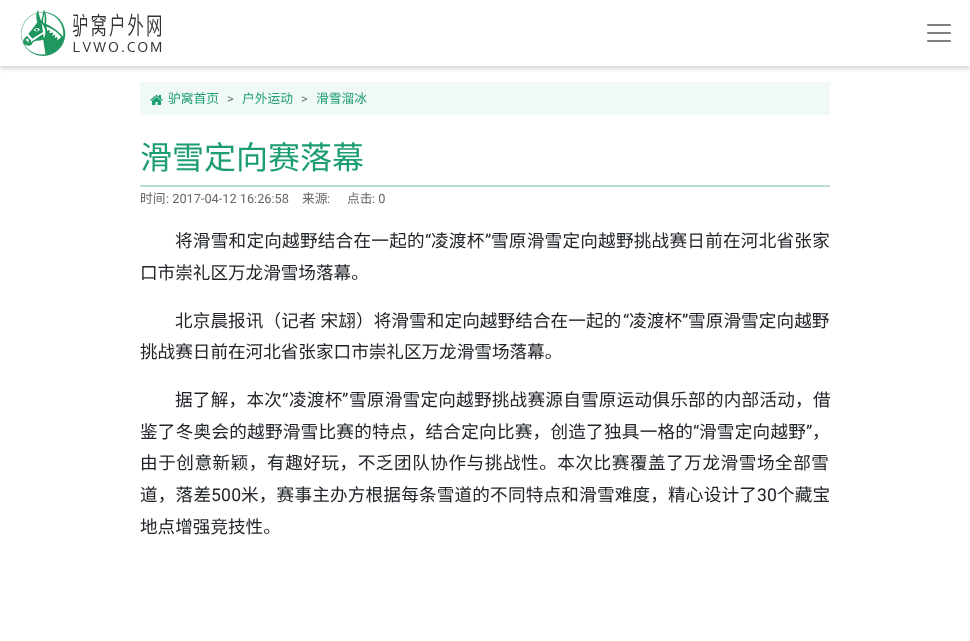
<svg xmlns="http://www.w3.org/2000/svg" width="970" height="641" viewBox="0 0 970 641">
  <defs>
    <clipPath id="clip1"><path d="M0 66h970v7H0z"/></clipPath>
  </defs>
  <rect width="100%" height="100%" fill="#fff"/>
  <g clip-path="url(#clip1)">
    <path d="M0 2h970v66H0z" fill="#ccc" filter="blur(2.5px)"/>
  </g>
  <image x="21" y="9" width="141" height="47" href="img/1.png"/>
  <image x="927" y="24" width="24" height="18" href="img/2.png"/>
  <path d="M140 82h690v33H140z" fill="#f1f9f7"/>
  <image x="150" y="94" width="13" height="11" href="img/3.png"/>
  <path d="M140 185h690v2H140z" fill="#bdc"/>
  <text x="168" y="103" font-family="Noto Sans CJK SC" font-size="12.75" fill="#1d9d74">驴窝首页</text>
  <text x="227" y="103" font-family="Roboto" font-size="12.75" fill="#6c757d">&gt;</text>
  <text x="242" y="103" font-family="Noto Sans CJK SC" font-size="12.75" fill="#1d9d74">户外运动</text>
  <text x="301" y="103" font-family="Roboto" font-size="12.75" fill="#6c757d">&gt;</text>
  <text x="316" y="103" font-family="Noto Sans CJK SC" font-size="12.75" fill="#1d9d74">滑雪溜冰</text>
  <text x="140" y="169" font-family="Noto Sans CJK SC" font-size="32" fill="#1d9d74">滑雪定向赛落幕</text>
  <text x="140" y="203" font-family="Noto Sans CJK SC" font-size="12.75" fill="#666">时间</text>
  <text x="166" y="203" font-family="Roboto" font-size="12.75" fill="#666">: 2017-04-12 16:26:58</text>
  <text x="302" y="203" font-family="Noto Sans CJK SC" font-size="12.75" fill="#666">来源</text>
  <text x="327" y="203" font-family="Roboto" font-size="12.75" fill="#666">:</text>
  <text x="347" y="203" font-family="Noto Sans CJK SC" font-size="12.75" fill="#666">点击</text>
  <text x="372" y="203" font-family="Roboto" font-size="12.75" fill="#666">: 0</text>
  <text x="175" y="247" font-family="Noto Sans CJK SC" font-size="17.6" letter-spacing="0.25" fill="#212529">将滑雪和定向越野结合在一起的</text>
  <text x="425" y="247" font-family="Roboto" font-size="17.6" letter-spacing="0.25" fill="#212529">“</text>
  <text x="431" y="247" font-family="Noto Sans CJK SC" font-size="17.6" letter-spacing="0.25" fill="#212529">凌渡杯</text>
  <text x="485" y="247" font-family="Roboto" font-size="17.6" letter-spacing="0.25" fill="#212529">”</text>
  <text x="491" y="247" font-family="Noto Sans CJK SC" font-size="17.6" letter-spacing="0.25" fill="#212529">雪原滑雪定向越野挑战赛日前在河北省张家</text>
  <text x="140" y="279" font-family="Noto Sans CJK SC" font-size="17.6" fill="#212529">口市崇礼区万龙滑雪场落幕。</text>
  <text x="175" y="327" font-family="Noto Sans CJK SC" font-size="17.6" letter-spacing="0.1" fill="#212529">北京晨报讯（记者 宋翃）将滑雪和定向越野结合在一起的</text>
  <text x="623" y="327" font-family="Roboto" font-size="17.6" letter-spacing="0.1" fill="#212529">“</text>
  <text x="629" y="327" font-family="Noto Sans CJK SC" font-size="17.6" letter-spacing="0.1" fill="#212529">凌渡杯</text>
  <text x="682" y="327" font-family="Roboto" font-size="17.6" letter-spacing="0.1" fill="#212529">”</text>
  <text x="688" y="327" font-family="Noto Sans CJK SC" font-size="17.6" letter-spacing="0.1" fill="#212529">雪原滑雪定向越野</text>
  <text x="140" y="358" font-family="Noto Sans CJK SC" font-size="17.6" fill="#212529">挑战赛日前在河北省张家口市崇礼区万龙滑雪场落幕。</text>
  <text x="175" y="406" font-family="Noto Sans CJK SC" font-size="17.6" letter-spacing="0.25" fill="#212529">据了解，本次</text>
  <text x="282" y="406" font-family="Roboto" font-size="17.6" letter-spacing="0.25" fill="#212529">“</text>
  <text x="289" y="406" font-family="Noto Sans CJK SC" font-size="17.6" letter-spacing="0.25" fill="#212529">凌渡杯</text>
  <text x="342" y="406" font-family="Roboto" font-size="17.6" letter-spacing="0.25" fill="#212529">”</text>
  <g font-family="Noto Sans CJK SC" font-size="17.6" letter-spacing="0.25" fill="#212529">
    <text x="349" y="406">雪原滑雪定向越野挑战赛源自雪原运动俱乐部的内部活动，借</text>
    <text x="140" y="438">鉴了冬奥会的越野滑雪比赛的特点，结合定向比赛，创造了独具一格的</text>
  </g>
  <text x="693" y="438" font-family="Roboto" font-size="17.6" letter-spacing="0.25" fill="#212529">“</text>
  <text x="699" y="438" font-family="Noto Sans CJK SC" font-size="17.6" letter-spacing="0.25" fill="#212529">滑雪定向越野</text>
  <text x="806" y="438" font-family="Roboto" font-size="17.6" letter-spacing="0.25" fill="#212529">”</text>
  <text x="812" y="438" font-family="Noto Sans CJK SC" font-size="17.6" letter-spacing="0.25" fill="#212529">，</text>
  <text x="140" y="469" font-family="Noto Sans CJK SC" font-size="17.6" letter-spacing="0.55" fill="#212529">由于创意新颖，有趣好玩，不乏团队协作与挑战性。本次比赛覆盖了万龙滑雪场全部雪</text>
  <text x="140" y="501" font-family="Noto Sans CJK SC" font-size="17.6" letter-spacing="0.2" fill="#212529">道，落差</text>
  <text x="211" y="501" font-family="Roboto" font-size="17.6" letter-spacing="0.2" fill="#212529">500</text>
  <text x="241" y="501" font-family="Noto Sans CJK SC" font-size="17.6" letter-spacing="0.2" fill="#212529">米，赛事主办方根据每条雪道的不同特点和滑雪难度，精心设计了</text>
  <text x="757" y="501" font-family="Roboto" font-size="17.6" letter-spacing="0.2" fill="#212529">30</text>
  <text x="777" y="501" font-family="Noto Sans CJK SC" font-size="17.6" letter-spacing="0.2" fill="#212529">个藏宝</text>
  <text x="140" y="533" font-family="Noto Sans CJK SC" font-size="17.6" fill="#212529">地点增强竞技性。</text>
</svg>
